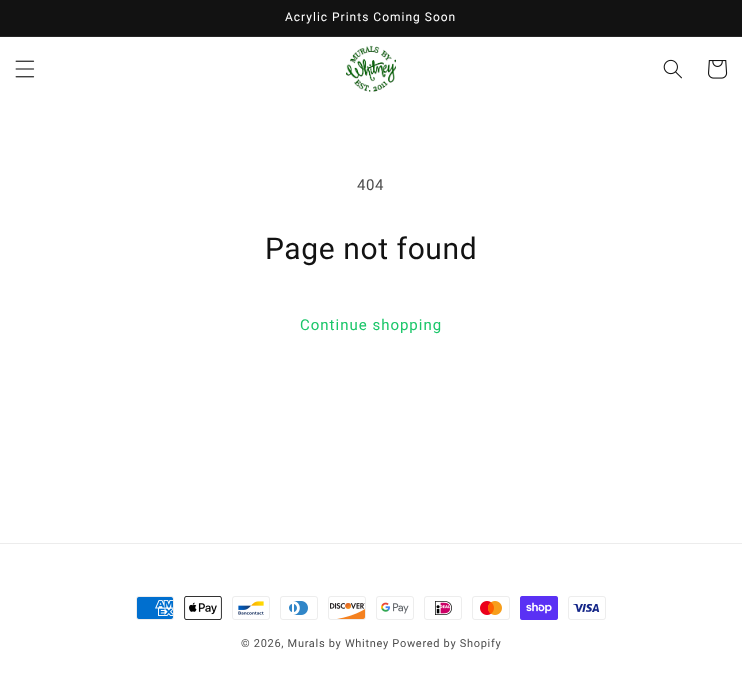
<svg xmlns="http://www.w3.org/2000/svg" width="742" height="681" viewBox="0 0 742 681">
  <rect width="100%" height="100%" fill="#fff"/>
  <path d="M0 0h742v36H0z" fill="#121212"/>
  <path d="M0 36h742v1H0z" fill="#252525"/>
  <image x="15" y="60" width="20" height="18" href="img/1.png"/>
  <image x="346" y="45" width="50" height="47" href="img/2.png"/>
  <image x="663" y="59" width="19" height="20" href="img/3.png"/>
  <image x="708" y="60" width="20" height="19" href="img/4.png"/>
  <path d="M0 543h742v1H0z" fill="#ececec"/>
  <image x="136" y="596" width="38" height="24" href="img/5.png"/>
  <image x="184" y="596" width="38" height="24" href="img/6.png"/>
  <image x="232" y="596" width="38" height="24" href="img/7.png"/>
  <image x="280" y="596" width="38" height="24" href="img/8.png"/>
  <image x="328" y="596" width="38" height="24" href="img/9.png"/>
  <image x="376" y="596" width="38" height="24" href="img/10.png"/>
  <image x="424" y="596" width="38" height="24" href="img/11.png"/>
  <image x="472" y="596" width="38" height="24" href="img/12.png"/>
  <image x="520" y="596" width="38" height="24" href="img/13.png"/>
  <image x="568" y="596" width="38" height="24" href="img/14.png"/>
  <text x="285" y="21" font-family="Roboto" font-size="12" letter-spacing="1" fill="#fff">Acrylic Prints Coming Soon</text>
  <text x="357" y="190" font-family="Roboto" font-size="15" letter-spacing="0.6" fill="#4d4d4d">404</text>
  <text x="265" y="259" font-family="Roboto" font-size="30" letter-spacing="0.6" fill="#121212">Page not found</text>
  <text x="300" y="330" font-family="Roboto" font-size="15" letter-spacing="1" fill="#1ac669">Continue shopping</text>
  <text x="241" y="647" font-family="Roboto" font-size="11" letter-spacing="0.7" fill="#4d4d4d">© 2026, Murals by Whitney Powered by Shopify</text>
</svg>
